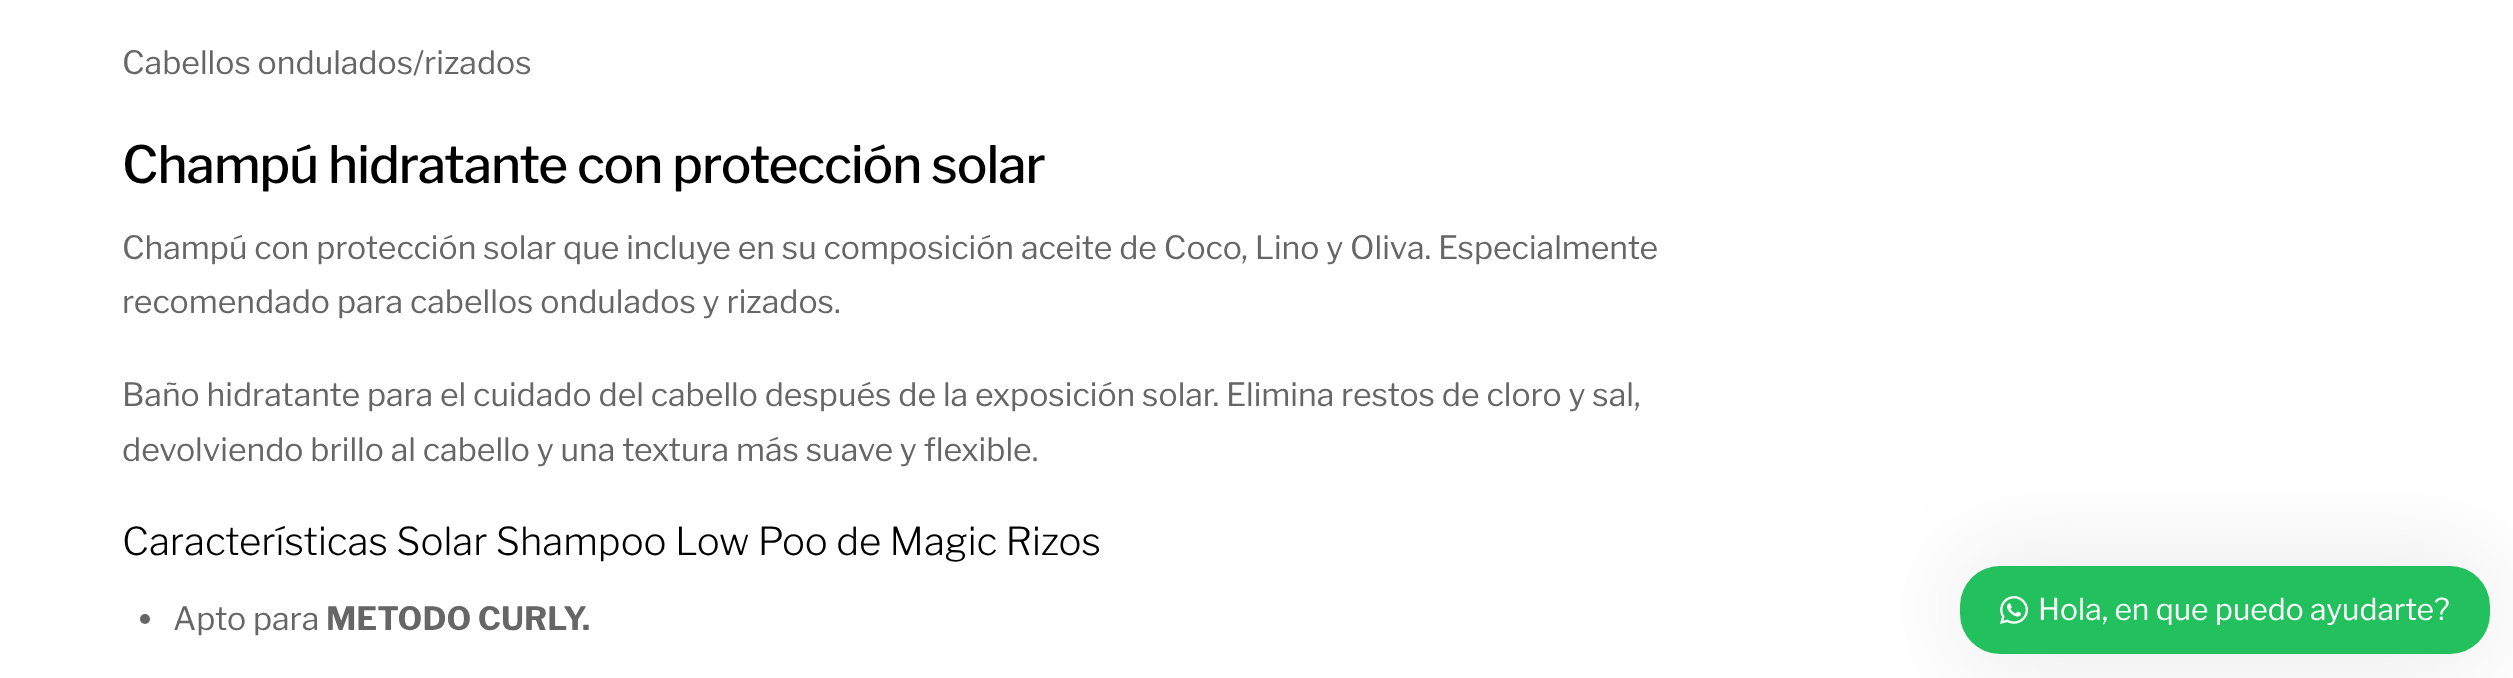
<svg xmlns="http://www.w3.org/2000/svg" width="2513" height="678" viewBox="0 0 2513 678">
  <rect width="100%" height="100%" fill="#fff"/>
  <circle cx="145" cy="619" r="5" fill="#666"/>
  <rect x="1960" y="566" width="530" height="88" rx="40" fill="#0000001a" filter="blur(50px)"/>
  <rect x="1960" y="566" width="530" height="88" rx="40" fill="#22c15e"/>
  <image x="2000" y="596" width="28" height="28" href="img/1.png"/>
  <text x="122" y="74" font-family="Libre Franklin" font-size="32" fill="#666">Cabellos ondulados/rizados</text>
  <text x="122" y="183" font-family="Libre Franklin" font-size="51.25" font-weight="500" letter-spacing="-1" fill="#000">Champú hidratante con protección solar</text>
  <g font-family="Libre Franklin" font-size="32" fill="#666">
    <text x="122" y="259">Champú con protección solar que incluye en su composición aceite de Coco, Lino y Oliva. Especialmente</text>
    <text x="122" y="313">recomendado para cabellos ondulados y rizados.</text>
    <text x="122" y="406">Baño hidratante para el cuidado del cabello después de la exposición solar. Elimina restos de cloro y sal,</text>
    <text x="122" y="461">devolviendo brillo al cabello y una textura más suave y flexible.</text>
  </g>
  <text x="122" y="555" font-family="Libre Franklin" font-size="38.4" font-weight="300" fill="#000">Características Solar Shampoo Low Poo de Magic Rizos</text>
  <text x="173" y="630" font-family="Libre Franklin" font-size="32" fill="#666">Apto para</text>
  <text x="326" y="630" font-family="Libre Franklin" font-size="32" font-weight="bold" fill="#666">METODO CURLY.</text>
  <text x="2038" y="620" font-family="Libre Franklin" font-size="30" fill="#fff">Hola, en que puedo ayudarte?</text>
</svg>
